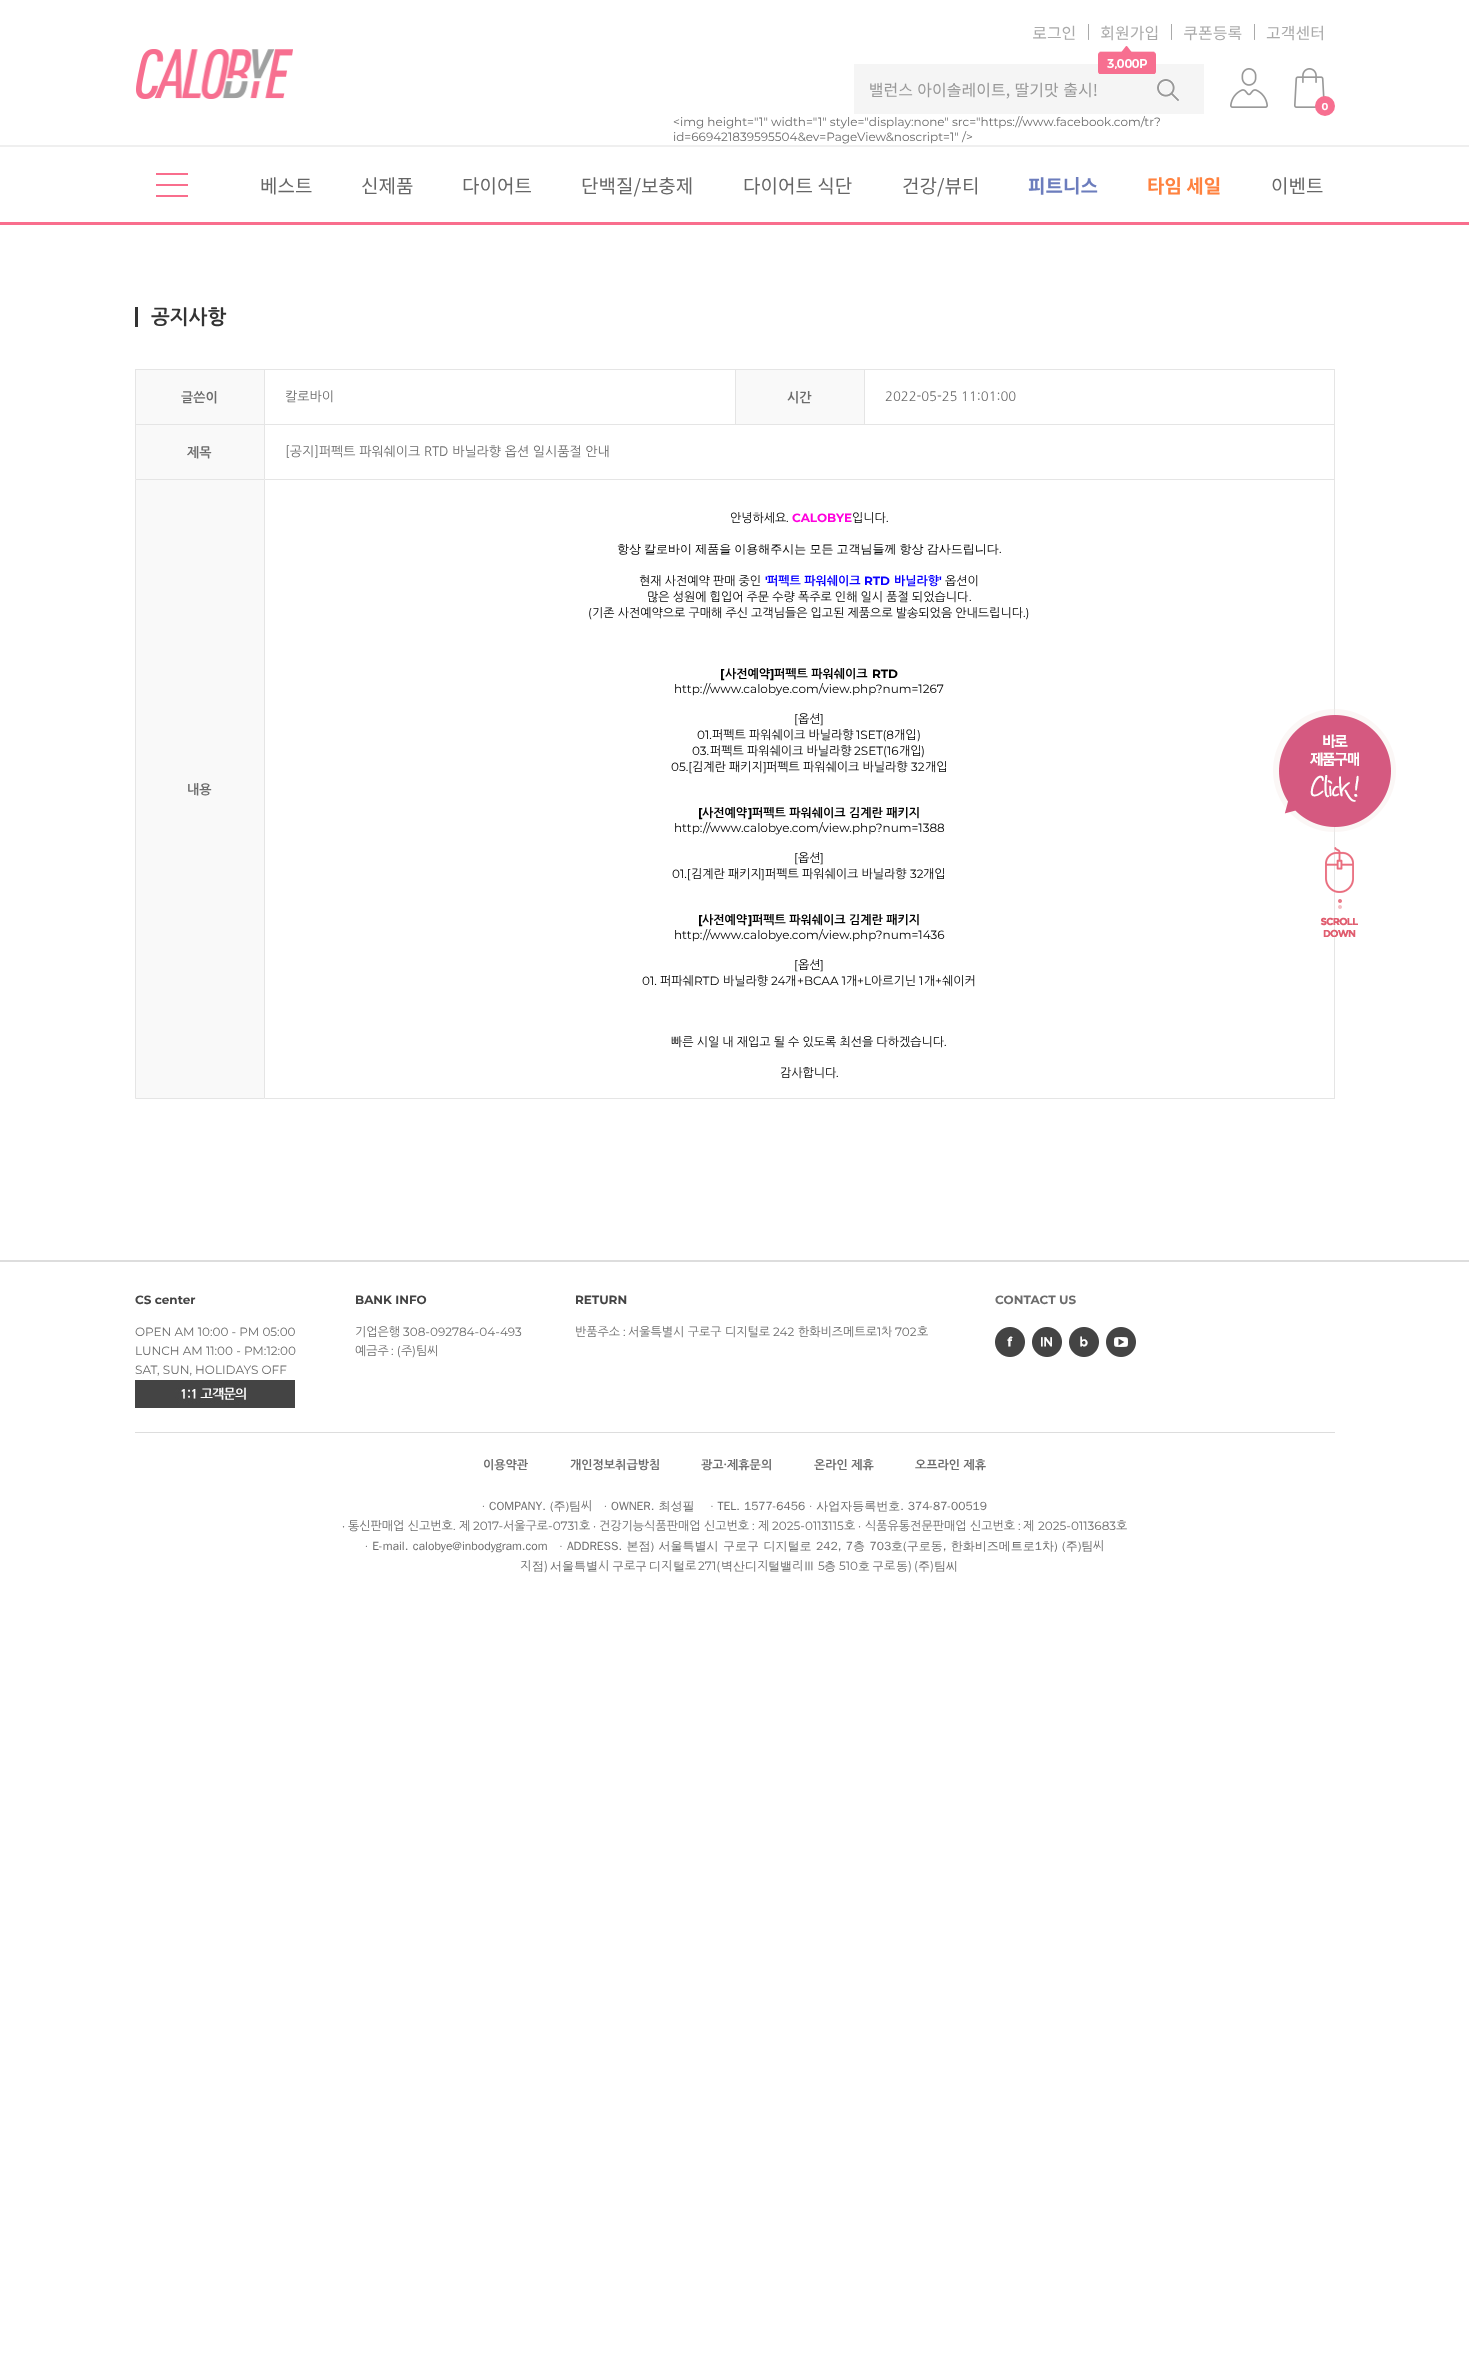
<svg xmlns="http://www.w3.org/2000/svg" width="1469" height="2362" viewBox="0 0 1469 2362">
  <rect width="100%" height="100%" fill="#fff"/>
  <image x="136" y="49" width="157" height="50" href="img/1.png"/>
  <image x="673" y="24" width="662" height="120" href="img/2.png"/>
  <path d="M0 145h1469v2H0z" fill="#efefef"/>
  <path d="M0 222h1469v3H0z" fill="#f96e8d"/>
  <path d="M156 173h32v2H156z" fill="#f96e8d"/>
  <path d="M156 184h32v2H156z" fill="#f96e8d"/>
  <path d="M156 195h32v2H156z" fill="#f96e8d"/>
  <path d="M265 479h1070v1H265z" fill="#e5e5e5"/>
  <path d="M1334 479h1v620H1334z" fill="#e5e5e5"/>
  <image x="1273" y="709" width="123" height="123" href="img/3.png"/>
  <image x="1320" y="847" width="38" height="90" href="img/4.png"/>
  <path d="M135 307h3v20H135z" fill="#333"/>
  <path d="M136 370h128v54H136z" fill="#f9f9f9"/>
  <path d="M135 369h1200v1H135z" fill="#e5e5e5"/>
  <path d="M264 369h1v55H264z" fill="#e5e5e5"/>
  <path d="M135 369h1v55H135z" fill="#e5e5e5"/>
  <path d="M736 370h128v54H736z" fill="#f9f9f9"/>
  <path d="M864 369h1v55H864z" fill="#e5e5e5"/>
  <path d="M735 369h1v55H735z" fill="#e5e5e5"/>
  <path d="M1334 369h1v55H1334z" fill="#e5e5e5"/>
  <path d="M136 425h128v54H136z" fill="#f9f9f9"/>
  <path d="M135 424h1200v1H135z" fill="#e5e5e5"/>
  <path d="M264 424h1v55H264z" fill="#e5e5e5"/>
  <path d="M135 424h1v55H135z" fill="#e5e5e5"/>
  <path d="M1334 424h1v55H1334z" fill="#e5e5e5"/>
  <path d="M135.5 479.5h129v619H135.5z" fill="#f9f9f9" stroke="#e5e5e5"/>
  <path d="M265 1098h1070v1H265z" fill="#e5e5e5"/>
  <path d="M0 1260h1469v2H0z" fill="#ddd"/>
  <path d="M135 1432h1200v1H135z" fill="#ddd"/>
  <image x="135" y="1380" width="160" height="28" href="img/5.png"/>
  <image x="995" y="1327" width="30" height="30" href="img/6.png"/>
  <image x="1032" y="1327" width="30" height="30" href="img/7.png"/>
  <image x="1069" y="1327" width="30" height="30" href="img/8.png"/>
  <image x="1106" y="1327" width="30" height="30" href="img/9.png"/>
  <g font-family="Noto Sans KR" font-size="19" fill="#666">
    <text x="260" y="193">베스트</text>
    <text x="361" y="193">신제품</text>
    <text x="462" y="193">다이어트</text>
    <text x="581" y="193">단백질/보충제</text>
    <text x="743" y="193">다이어트 식단</text>
    <text x="902" y="193">건강/뷰티</text>
  </g>
  <text x="1028" y="193" font-family="Noto Sans KR" font-size="19" font-weight="bold" fill="#6c7dbd">피트니스</text>
  <text x="1147" y="193" font-family="Noto Sans KR" font-size="19" font-weight="bold" fill="#ff823f">타임 세일</text>
  <text x="1271" y="193" font-family="Noto Sans KR" font-size="19" fill="#666">이벤트</text>
  <text x="151" y="324" font-family="NanumGothic" font-size="20" font-weight="bold" fill="#333">공지사항</text>
  <text x="181" y="402" font-family="NanumGothic" font-size="13" font-weight="bold" fill="#6c6c6c">글쓴이</text>
  <text x="285" y="401" font-family="NanumGothic" font-size="13" fill="#6c6c6c">칼로바이</text>
  <text x="787" y="402" font-family="NanumGothic" font-size="13" font-weight="bold" fill="#6c6c6c">시간</text>
  <text x="885" y="401" font-family="NanumGothic" font-size="13" fill="#6c6c6c">2022-05-25 11:01:00</text>
  <text x="187" y="457" font-family="NanumGothic" font-size="13" font-weight="bold" fill="#6c6c6c">제목</text>
  <text x="285" y="456" font-family="NanumGothic" font-size="13" fill="#6c6c6c">[공지]퍼펙트 파워쉐이크 RTD 바닐라향 옵션 일시품절 안내</text>
  <text x="187" y="794" font-family="NanumGothic" font-size="13" font-weight="bold" fill="#6c6c6c">내용</text>
  <text x="730" y="522" font-family="NanumGothic" font-size="12" fill="#000">안녕하세요</text>
  <text x="786" y="522" font-family="Montserrat" font-size="12" fill="#000">.</text>
  <text x="792" y="522" font-family="Montserrat" font-size="12" font-weight="bold" fill="#f0d">CALOBYE</text>
  <text x="852" y="522" font-family="NanumGothic" font-size="12" fill="#000">입니다</text>
  <text x="886" y="522" font-family="Montserrat" font-size="12" fill="#000">.</text>
  <text x="617" y="553" word-spacing="-0.5" font-family="WenQuanYi Zen Hei" font-size="12" font-weight="500" fill="#000">항상 칼로바이 제품을 이용해주시는 모든 고객님들께 항상 감사드립니다</text>
  <text x="999" y="553" font-family="Montserrat" font-size="12" fill="#000">.</text>
  <text x="639" y="585" word-spacing="-0.25" font-family="NanumGothic" font-size="12" fill="#000">현재 사전예약 판매 중인</text>
  <text x="765" y="585" font-family="Montserrat" font-size="12" font-weight="bold" fill="#0900ff">'</text>
  <text x="767" y="585" font-family="NanumGothic" font-size="12" font-weight="bold" fill="#0900ff">퍼펙트 파워쉐이크</text>
  <text x="864" y="585" font-family="Montserrat" font-size="12" font-weight="bold" fill="#0900ff">RTD</text>
  <text x="894" y="585" font-family="NanumGothic" font-size="12" font-weight="bold" fill="#0900ff">바닐라향</text>
  <text x="939" y="585" font-family="Montserrat" font-size="12" font-weight="bold" fill="#0900ff">'</text>
  <g font-family="NanumGothic" font-size="12" fill="#000">
    <text x="945" y="585">옵션이</text>
    <text x="647" y="601" word-spacing="-0.25">많은 성원에 힙입어 주문 수량 폭주로 인해 일시 품절 되었습니다</text>
  </g>
  <g font-family="Montserrat" font-size="12" fill="#000">
    <text x="969" y="601">.</text>
    <text x="588" y="617">(</text>
  </g>
  <text x="592" y="617" word-spacing="-0.25" font-family="NanumGothic" font-size="12" fill="#000">기존 사전예약으로 구매해 주신 고객님들은 입고된 제품으로 발송되었음 안내드립니다</text>
  <text x="1023" y="617" font-family="Montserrat" font-size="12" fill="#000">.)</text>
  <text x="720" y="678" font-family="Montserrat" font-size="12" font-weight="bold" fill="#000">[</text>
  <text x="725" y="678" font-family="NanumGothic" font-size="12" font-weight="bold" fill="#000">사전예약</text>
  <text x="770" y="678" font-family="Montserrat" font-size="12" font-weight="bold" fill="#000">]</text>
  <text x="774" y="678" font-family="NanumGothic" font-size="12" font-weight="bold" fill="#000">퍼펙트 파워쉐이크</text>
  <text x="872" y="678" font-family="Montserrat" font-size="12" font-weight="bold" fill="#000">RTD</text>
  <g font-family="Montserrat" font-size="12" fill="#000">
    <text x="674" y="693">http://www.calobye.com/view.php?num=1267</text>
    <text x="794" y="723">[</text>
  </g>
  <text x="798" y="723" font-family="NanumGothic" font-size="12" fill="#000">옵션</text>
  <g font-family="Montserrat" font-size="12" fill="#000">
    <text x="820" y="723">]</text>
    <text x="697" y="739">01.</text>
  </g>
  <text x="712" y="739" word-spacing="-0.25" font-family="NanumGothic" font-size="12" fill="#000">퍼펙트 파워쉐이크 바닐라향</text>
  <text x="856" y="739" font-family="Montserrat" font-size="12" fill="#000">1SET(8</text>
  <text x="894" y="739" font-family="NanumGothic" font-size="12" fill="#000">개입</text>
  <g font-family="Montserrat" font-size="12" fill="#000">
    <text x="917" y="739">)</text>
    <text x="692" y="755">03.</text>
  </g>
  <text x="710" y="755" word-spacing="-0.25" font-family="NanumGothic" font-size="12" fill="#000">퍼펙트 파워쉐이크 바닐라향</text>
  <text x="854" y="755" font-family="Montserrat" font-size="12" fill="#000">2SET(16</text>
  <text x="899" y="755" font-family="NanumGothic" font-size="12" fill="#000">개입</text>
  <g font-family="Montserrat" font-size="12" fill="#000">
    <text x="921" y="755">)</text>
    <text x="671" y="771">05.[</text>
  </g>
  <text x="692" y="771" word-spacing="-0.25" font-family="NanumGothic" font-size="12" fill="#000">김계란 패키지</text>
  <text x="763" y="771" font-family="Montserrat" font-size="12" fill="#000">]</text>
  <text x="766" y="771" word-spacing="-0.25" font-family="NanumGothic" font-size="12" fill="#000">퍼펙트 파워쉐이크 바닐라향</text>
  <text x="911" y="771" font-family="Montserrat" font-size="12" fill="#000">32</text>
  <text x="925" y="771" font-family="NanumGothic" font-size="12" fill="#000">개입</text>
  <text x="698" y="817" font-family="Montserrat" font-size="12" font-weight="bold" fill="#000">[</text>
  <text x="702" y="817" font-family="NanumGothic" font-size="12" font-weight="bold" fill="#000">사전예약</text>
  <text x="748" y="817" font-family="Montserrat" font-size="12" font-weight="bold" fill="#000">]</text>
  <text x="752" y="817" font-family="NanumGothic" font-size="12" font-weight="bold" fill="#000">퍼펙트 파워쉐이크 김계란 패키지</text>
  <g font-family="Montserrat" font-size="12" fill="#000">
    <text x="674" y="832">http://www.calobye.com/view.php?num=1388</text>
    <text x="794" y="862">[</text>
  </g>
  <text x="798" y="862" font-family="NanumGothic" font-size="12" fill="#000">옵션</text>
  <g font-family="Montserrat" font-size="12" fill="#000">
    <text x="820" y="862">]</text>
    <text x="672" y="878">01.[</text>
  </g>
  <text x="691" y="878" word-spacing="-0.25" font-family="NanumGothic" font-size="12" fill="#000">김계란 패키지</text>
  <text x="761" y="878" font-family="Montserrat" font-size="12" fill="#000">]</text>
  <text x="765" y="878" word-spacing="-0.25" font-family="NanumGothic" font-size="12" fill="#000">퍼펙트 파워쉐이크 바닐라향</text>
  <text x="910" y="878" font-family="Montserrat" font-size="12" fill="#000">32</text>
  <text x="923" y="878" font-family="NanumGothic" font-size="12" fill="#000">개입</text>
  <text x="698" y="924" font-family="Montserrat" font-size="12" font-weight="bold" fill="#000">[</text>
  <text x="702" y="924" font-family="NanumGothic" font-size="12" font-weight="bold" fill="#000">사전예약</text>
  <text x="748" y="924" font-family="Montserrat" font-size="12" font-weight="bold" fill="#000">]</text>
  <text x="752" y="924" font-family="NanumGothic" font-size="12" font-weight="bold" fill="#000">퍼펙트 파워쉐이크 김계란 패키지</text>
  <g font-family="Montserrat" font-size="12" fill="#000">
    <text x="674" y="939">http://www.calobye.com/view.php?num=1436</text>
    <text x="794" y="969">[</text>
  </g>
  <text x="798" y="969" font-family="NanumGothic" font-size="12" fill="#000">옵션</text>
  <g font-family="Montserrat" font-size="12" fill="#000">
    <text x="820" y="969">]</text>
    <text x="642" y="985">01.</text>
  </g>
  <text x="660" y="985" font-family="NanumGothic" font-size="12" fill="#000">퍼파쉐</text>
  <text x="694" y="985" font-family="Montserrat" font-size="12" fill="#000">RTD</text>
  <text x="723" y="985" font-family="NanumGothic" font-size="12" fill="#000">바닐라향</text>
  <text x="771" y="985" font-family="Montserrat" font-size="12" fill="#000">24</text>
  <text x="785" y="985" font-family="NanumGothic" font-size="12" fill="#000">개</text>
  <text x="797" y="985" font-family="Montserrat" font-size="12" fill="#000">+BCAA 1</text>
  <text x="846" y="985" font-family="NanumGothic" font-size="12" fill="#000">개</text>
  <text x="857" y="985" font-family="Montserrat" font-size="12" fill="#000">+L</text>
  <text x="871" y="985" font-family="NanumGothic" font-size="12" fill="#000">아르기닌</text>
  <text x="919" y="985" font-family="Montserrat" font-size="12" fill="#000">1</text>
  <text x="924" y="985" font-family="NanumGothic" font-size="12" fill="#000">개</text>
  <text x="935" y="985" font-family="Montserrat" font-size="12" fill="#000">+</text>
  <g font-family="NanumGothic" font-size="12" fill="#000">
    <text x="942" y="985">쉐이커</text>
    <text x="671" y="1046" word-spacing="-0.25">빠른 시일 내 재입고 될 수 있도록 최선을 다하겠습니다</text>
  </g>
  <text x="944" y="1046" font-family="Montserrat" font-size="12" fill="#000">.</text>
  <text x="780" y="1077" font-family="NanumGothic" font-size="12" fill="#000">감사합니다</text>
  <text x="836" y="1077" font-family="Montserrat" font-size="12" fill="#000">.</text>
  <text x="135" y="1304" font-family="Montserrat" font-size="12" font-weight="bold" fill="#444">CS center</text>
  <g font-family="Montserrat" font-size="12" fill="#6c6c6c">
    <text x="135" y="1336">OPEN AM 10:00 - PM 05:00</text>
    <text x="135" y="1355">LUNCH AM 11:00 - PM:12:00</text>
    <text x="135" y="1374">SAT, SUN, HOLIDAYS OFF</text>
  </g>
  <text x="355" y="1304" font-family="Montserrat" font-size="12" font-weight="bold" fill="#444">BANK INFO</text>
  <text x="355" y="1336" font-family="NanumGothic" font-size="12" fill="#6c6c6c">기업은행</text>
  <text x="403" y="1336" font-family="Montserrat" font-size="12" fill="#6c6c6c">308-092784-04-493</text>
  <text x="355" y="1355" font-family="NanumGothic" font-size="12" fill="#6c6c6c">예금주</text>
  <text x="391" y="1355" font-family="Montserrat" font-size="12" fill="#6c6c6c">: (</text>
  <text x="401" y="1355" font-family="NanumGothic" font-size="12" fill="#6c6c6c">주</text>
  <text x="412" y="1355" font-family="Montserrat" font-size="12" fill="#6c6c6c">)</text>
  <text x="416" y="1355" font-family="NanumGothic" font-size="12" fill="#6c6c6c">팀씨</text>
  <text x="575" y="1304" font-family="Montserrat" font-size="12" font-weight="bold" fill="#444">RETURN</text>
  <text x="575" y="1336" font-family="NanumGothic" font-size="12" fill="#6c6c6c">반품주소</text>
  <text x="623" y="1336" font-family="Montserrat" font-size="12" fill="#6c6c6c">:</text>
  <text x="628" y="1336" font-family="NanumGothic" font-size="12" fill="#6c6c6c">서울특별시 구로구 디지털로</text>
  <text x="773" y="1336" font-family="Montserrat" font-size="12" fill="#6c6c6c">242</text>
  <text x="798" y="1336" font-family="NanumGothic" font-size="12" fill="#6c6c6c">한화비즈메트로</text>
  <text x="877" y="1336" font-family="Montserrat" font-size="12" fill="#6c6c6c">1</text>
  <text x="881" y="1336" font-family="NanumGothic" font-size="12" fill="#6c6c6c">차</text>
  <text x="895" y="1336" font-family="Montserrat" font-size="12" fill="#6c6c6c">702</text>
  <text x="917" y="1336" font-family="NanumGothic" font-size="12" fill="#6c6c6c">호</text>
  <text x="995" y="1304" font-family="Montserrat" font-size="12" font-weight="bold" fill="#6c6c6c">CONTACT US</text>
  <g font-family="NanumGothic" font-size="12" font-weight="bold" fill="#6c6c6c">
    <text x="483" y="1469">이용약관</text>
    <text x="570" y="1469">개인정보취급방침</text>
    <text x="701" y="1469">광고·제휴문의</text>
    <text x="814" y="1469">온라인 제휴</text>
    <text x="915" y="1469">오프라인 제휴</text>
  </g>
  <text x="482" y="1510" word-spacing="0.5" font-family="WenQuanYi Zen Hei" font-size="12" font-weight="500" fill="#6c6c6c">· COMPANY. (주)팀</text>
  <text x="581" y="1510" font-family="NanumGothic" font-size="12" fill="#6c6c6c">씨</text>
  <text x="604" y="1510" word-spacing="0.5" font-family="WenQuanYi Zen Hei" font-size="12" font-weight="500" fill="#6c6c6c">· OWNER. 최성필　 · TEL. 1577-6456 · 사업자등록번호. 374-87-00519</text>
  <text x="342" y="1530" font-family="Montserrat" font-size="12" fill="#6c6c6c">·</text>
  <g font-family="NanumGothic" font-size="12" fill="#6c6c6c">
    <text x="348" y="1530">통신판매업 신고번호</text>
    <text x="459" y="1530">제</text>
  </g>
  <text x="473" y="1530" font-family="Montserrat" font-size="12" fill="#6c6c6c">2017-</text>
  <text x="503" y="1530" font-family="NanumGothic" font-size="12" fill="#6c6c6c">서울구로</text>
  <text x="548" y="1530" font-family="Montserrat" font-size="12" fill="#6c6c6c">-0731</text>
  <text x="579" y="1530" font-family="NanumGothic" font-size="12" fill="#6c6c6c">호</text>
  <text x="593" y="1530" font-family="Montserrat" font-size="12" fill="#6c6c6c">·</text>
  <text x="599" y="1530" font-family="NanumGothic" font-size="12" fill="#6c6c6c">건강기능식품판매업 신고번호</text>
  <text x="752" y="1530" font-family="Montserrat" font-size="12" fill="#6c6c6c">:</text>
  <text x="758" y="1530" font-family="NanumGothic" font-size="12" fill="#6c6c6c">제</text>
  <text x="772" y="1530" font-family="Montserrat" font-size="12" fill="#6c6c6c">2025-0113115</text>
  <text x="844" y="1530" font-family="NanumGothic" font-size="12" fill="#6c6c6c">호</text>
  <text x="858" y="1530" font-family="Montserrat" font-size="12" fill="#6c6c6c">·</text>
  <text x="865" y="1530" font-family="NanumGothic" font-size="12" fill="#6c6c6c">식품유통전문판매업 신고번호</text>
  <text x="1018" y="1530" font-family="Montserrat" font-size="12" fill="#6c6c6c">:</text>
  <text x="1023" y="1530" font-family="NanumGothic" font-size="12" fill="#6c6c6c">제</text>
  <text x="1038" y="1530" font-family="Montserrat" font-size="12" fill="#6c6c6c">2025-0113683</text>
  <text x="1116" y="1530" font-family="NanumGothic" font-size="12" fill="#6c6c6c">호</text>
  <text x="453" y="1530" font-family="Montserrat" font-size="12" fill="#6c6c6c">.</text>
  <text x="365" y="1550" word-spacing="0.9" font-family="WenQuanYi Zen Hei" font-size="12" font-weight="500" fill="#6c6c6c">· E-mail. calobye@inbodygram.com　· ADDRESS. 본점) 서울특별시 구로구 디지털로 242, 7층 703호(구로동, 한화비즈메트로1차) (주)팀</text>
  <g font-family="NanumGothic" font-size="12" fill="#6c6c6c">
    <text x="1093" y="1550">씨</text>
    <text x="520" y="1570">지</text>
  </g>
  <text x="532" y="1570" font-family="WenQuanYi Zen Hei" font-size="12" font-weight="500" fill="#6c6c6c">점</text>
  <text x="544" y="1570" font-family="Montserrat" font-size="12" fill="#6c6c6c">)</text>
  <text x="550" y="1570" font-family="WenQuanYi Zen Hei" font-size="12" font-weight="500" fill="#6c6c6c">서울특별</text>
  <text x="598" y="1570" font-family="NanumGothic" font-size="12" fill="#6c6c6c">시</text>
  <text x="612" y="1570" font-family="WenQuanYi Zen Hei" font-size="12" font-weight="500" fill="#6c6c6c">구</text>
  <text x="624" y="1570" font-family="NanumGothic" font-size="12" fill="#6c6c6c">로</text>
  <g font-family="WenQuanYi Zen Hei" font-size="12" font-weight="500" fill="#6c6c6c">
    <text x="635" y="1570">구</text>
    <text x="649" y="1570">디</text>
  </g>
  <text x="661" y="1570" font-family="NanumGothic" font-size="12" fill="#6c6c6c">지</text>
  <text x="673" y="1570" font-family="WenQuanYi Zen Hei" font-size="12" font-weight="500" fill="#6c6c6c">털</text>
  <text x="685" y="1570" font-family="NanumGothic" font-size="12" fill="#6c6c6c">로</text>
  <text x="698" y="1570" font-family="Montserrat" font-size="12" fill="#6c6c6c">271(</text>
  <text x="721" y="1570" font-family="WenQuanYi Zen Hei" font-size="12" font-weight="500" fill="#6c6c6c">벽산디</text>
  <text x="757" y="1570" font-family="NanumGothic" font-size="12" fill="#6c6c6c">지</text>
  <text x="768" y="1570" font-family="WenQuanYi Zen Hei" font-size="12" font-weight="500" fill="#6c6c6c">털밸</text>
  <text x="792" y="1570" font-family="NanumGothic" font-size="12" fill="#6c6c6c">리</text>
  <text x="803" y="1570" font-family="WenQuanYi Zen Hei" font-size="12" font-weight="500" fill="#6c6c6c">Ⅲ</text>
  <text x="818" y="1570" font-family="Montserrat" font-size="12" fill="#6c6c6c">5</text>
  <text x="824" y="1570" font-family="WenQuanYi Zen Hei" font-size="12" font-weight="500" fill="#6c6c6c">층</text>
  <text x="839" y="1570" font-family="Montserrat" font-size="12" fill="#6c6c6c">510</text>
  <g font-family="WenQuanYi Zen Hei" font-size="12" font-weight="500" fill="#6c6c6c">
    <text x="858" y="1570">호</text>
    <text x="872" y="1570">구</text>
  </g>
  <text x="884" y="1570" font-family="NanumGothic" font-size="12" fill="#6c6c6c">로</text>
  <text x="896" y="1570" font-family="WenQuanYi Zen Hei" font-size="12" font-weight="500" fill="#6c6c6c">동</text>
  <text x="908" y="1570" word-spacing="-1" font-family="Montserrat" font-size="12" fill="#6c6c6c">) (</text>
  <text x="918" y="1570" font-family="WenQuanYi Zen Hei" font-size="12" font-weight="500" fill="#6c6c6c">주</text>
  <text x="930" y="1570" font-family="Montserrat" font-size="12" fill="#6c6c6c">)</text>
  <text x="934" y="1570" font-family="WenQuanYi Zen Hei" font-size="12" font-weight="500" fill="#6c6c6c">팀씨</text>
</svg>
